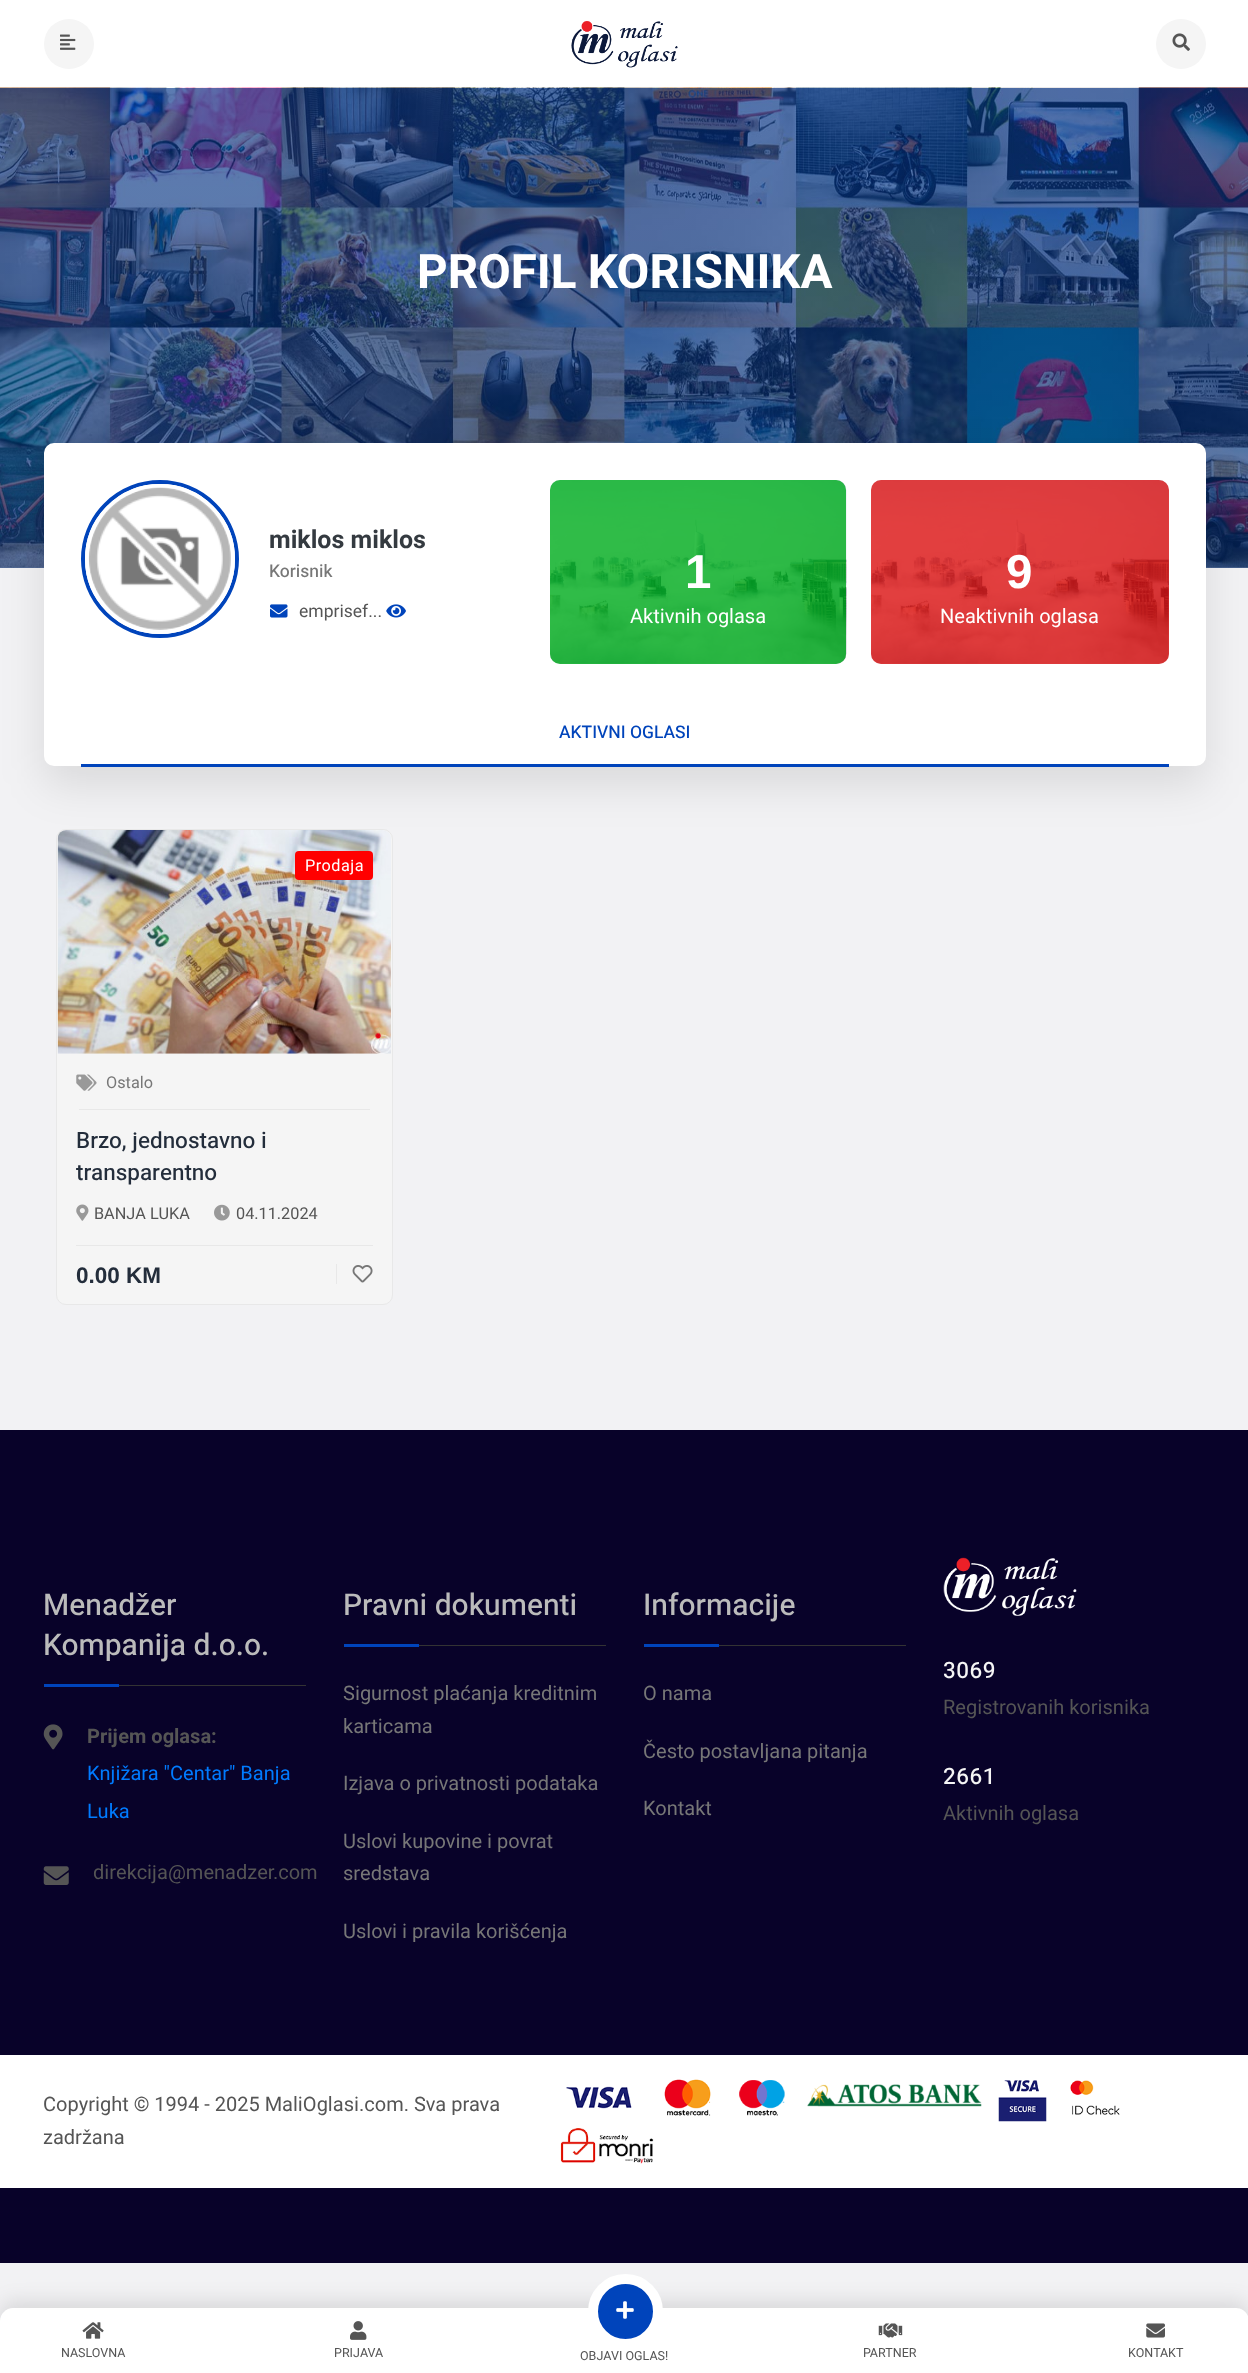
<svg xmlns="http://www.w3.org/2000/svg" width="1248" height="2373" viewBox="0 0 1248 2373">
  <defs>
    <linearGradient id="g1" gradientUnits="userSpaceOnUse" x1="624" y1="87" x2="624" y2="568"><stop offset="0" stop-color="#04358a" stop-opacity="0.65"/><stop offset="1" stop-color="#052c70" stop-opacity="0.65"/></linearGradient>
  </defs>
  <rect width="100%" height="100%" fill="#f2f2f4"/>
  <path d="M0 0h1248v88H0z" fill="#fff"/>
  <circle cx="69" cy="44" r="25" fill="#f5f5f5"/>
  <image x="60" y="34" width="16" height="16" href="img/1.png"/>
  <image x="571" y="21" width="107" height="47" href="img/2.png"/>
  <circle cx="1181" cy="44" r="25" fill="#f5f5f5"/>
  <image x="1172" y="33" width="18" height="18" href="img/3.png"/>
  <image x="0" y="87" width="1248" height="481" href="img/4.png"/>
  <path d="M0 88h1248v480H0z" fill="url(#g1)"/>
  <rect x="56.5" y="829.5" width="336" height="475" rx="9.5" fill="#f5f5f5" stroke="#e8e8e8"/>
  <image x="57" y="830" width="334" height="224" href="img/10.png"/>
  <rect x="44" y="461" width="1162" height="324" rx="10" fill="#0000001a" filter="blur(22px)"/>
  <rect x="44" y="443" width="1162" height="323" rx="10" fill="#fff"/>
  <circle cx="160" cy="559" r="77" fill="none" stroke="#04b" stroke-width="4"/>
  <circle cx="160" cy="559" r="73" fill="none" stroke="#fff" stroke-width="4"/>
  <image x="88" y="487" width="143" height="143" href="img/5.png"/>
  <image x="270" y="604" width="18" height="14" href="img/6.png"/>
  <image x="386" y="604" width="20" height="14" href="img/7.png"/>
  <image x="550" y="480" width="297" height="184" href="img/8.png"/>
  <rect x="550" y="480" width="296" height="184" rx="10" fill="#00af1ecc"/>
  <image x="871" y="480" width="298" height="184" href="img/9.png"/>
  <rect x="871" y="480" width="298" height="184" rx="10" fill="#df1313cc"/>
  <path d="M81 764h1088v3H81z" fill="#04b"/>
  <rect x="295" y="851" width="78" height="29" rx="4" fill="#f00"/>
  <path d="M79 1109h291v1H79z" fill="#e8e8e8"/>
  <image x="76" y="1074" width="21" height="17" href="img/11.png"/>
  <image x="76" y="1204" width="13" height="17" href="img/12.png"/>
  <image x="214" y="1204" width="16" height="17" href="img/13.png"/>
  <path d="M76 1245h297v1H76z" fill="#e8e8e8"/>
  <path d="M336 1264h1v20H336z" fill="#e8e8e8"/>
  <image x="352" y="1265" width="21" height="18" href="img/14.png"/>
  <path d="M0 1430h1248v833H0z" fill="#080229"/>
  <path d="M119 1685h187v1H119z" fill="#333"/>
  <path d="M44 1684h75v3H44z" fill="#04b"/>
  <image x="43" y="1724" width="20" height="26" href="img/15.png"/>
  <image x="43" y="1866" width="26" height="19" href="img/16.png"/>
  <path d="M419 1645h187v1H419z" fill="#333"/>
  <path d="M344 1644h75v3H344z" fill="#04b"/>
  <path d="M719 1645h187v1H719z" fill="#333"/>
  <path d="M644 1644h75v3H644z" fill="#04b"/>
  <image x="943" y="1557" width="134" height="59" href="img/17.png"/>
  <path d="M0 2055h1248v133H0z" fill="#fff"/>
  <image x="566" y="2086" width="66" height="23" href="img/18.png"/>
  <image x="664" y="2079" width="47" height="37" href="img/19.png"/>
  <image x="739" y="2080" width="46" height="36" href="img/20.png"/>
  <image x="807" y="2084" width="175" height="23" href="img/21.png"/>
  <image x="998" y="2080" width="49" height="42" href="img/22.png"/>
  <image x="1070" y="2080" width="50" height="35" href="img/23.png"/>
  <image x="560" y="2128" width="94" height="36" href="img/24.png"/>
  <rect y="2301" width="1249" height="67" rx="13" fill="#0000001a" filter="blur(9.5px)"/>
  <path d="M13 2308H1236C1243 2308 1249 2314 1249 2321V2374H0V2321C0 2314 6 2308 13 2308Z" fill="#fff"/>
  <image x="82" y="2322" width="22" height="17" href="img/25.png"/>
  <image x="350" y="2321" width="17" height="19" href="img/26.png"/>
  <circle cx="625.5" cy="2311.5" r="32.5" fill="#04b" stroke="#fff" stroke-width="10"/>
  <image x="616" y="2301" width="18" height="18" href="img/27.png"/>
  <image x="878" y="2323" width="25" height="15" href="img/28.png"/>
  <image x="1146" y="2323" width="19" height="15" href="img/29.png"/>
  <text x="417" y="288" font-family="Heebo" font-size="47.5" font-weight="bold" fill="#fff">PROFIL KORISNIKA</text>
  <text x="269" y="548" font-family="Heebo" font-size="25" font-weight="bold" fill="#343a40">miklos miklos</text>
  <text x="269" y="577" font-family="Heebo" font-size="17.5" font-weight="500" fill="#777">Korisnik</text>
  <text x="299" y="617" font-family="Heebo" font-size="17.5" fill="#555">emprisef...</text>
  <text x="685" y="588" font-family="Liberation Sans" font-size="47.5" font-weight="bold" fill="#fff">1</text>
  <text x="630" y="623" font-family="Heebo" font-size="20" fill="#fff">Aktivnih oglasa</text>
  <text x="1006" y="588" font-family="Liberation Sans" font-size="47.5" font-weight="bold" fill="#fff">9</text>
  <text x="940" y="623" font-family="Heebo" font-size="20" fill="#fff">Neaktivnih oglasa</text>
  <text x="559" y="738" font-family="Heebo" font-size="17.5" font-weight="500" fill="#04b">AKTIVNI OGLASI</text>
  <text x="305" y="871" font-family="Heebo" font-size="16.25" letter-spacing="0.5" fill="#fff">Prodaja</text>
  <text x="106" y="1088" font-family="Heebo" font-size="16.25" fill="#777">Ostalo</text>
  <g font-family="Heebo" font-size="22.5" font-weight="500" fill="#232d3b">
    <text x="76" y="1148">Brzo, jednostavno i</text>
    <text x="76" y="1180">transparentno</text>
  </g>
  <g font-family="Heebo" font-size="16.25" fill="#555">
    <text x="94" y="1219">BANJA LUKA</text>
    <text x="236" y="1219">04.11.2024</text>
  </g>
  <text x="76" y="1283" font-family="Liberation Sans" font-size="22.5" font-weight="bold" fill="#232d3b">0.00 KM</text>
  <g font-family="Heebo" font-size="30" font-weight="500" fill="#bbb">
    <text x="43" y="1615">Menadžer</text>
    <text x="43" y="1655">Kompanija d.o.o.</text>
  </g>
  <text x="87" y="1743" font-family="Heebo" font-size="20" font-weight="bold" fill="#555">Prijem oglasa:</text>
  <g font-family="Heebo" font-size="20" fill="#007bff">
    <text x="87" y="1780">Knjižara "Centar" Banja</text>
    <text x="87" y="1818">Luka</text>
  </g>
  <text x="93" y="1879" font-family="Heebo" font-size="20" fill="#555">direkcija@menadzer.com</text>
  <text x="343" y="1615" font-family="Heebo" font-size="30" font-weight="500" fill="#bbb">Pravni dokumenti</text>
  <g font-family="Heebo" font-size="20" fill="#777">
    <text x="343" y="1700">Sigurnost plaćanja kreditnim</text>
    <text x="343" y="1733">karticama</text>
    <text x="343" y="1790">Izjava o privatnosti podataka</text>
    <text x="343" y="1848">Uslovi kupovine i povrat</text>
    <text x="343" y="1880">sredstava</text>
    <text x="343" y="1938">Uslovi i pravila korišćenja</text>
  </g>
  <text x="643" y="1615" font-family="Heebo" font-size="30" font-weight="500" fill="#bbb">Informacije</text>
  <g font-family="Heebo" font-size="20" fill="#777">
    <text x="643" y="1700">O nama</text>
    <text x="643" y="1758">Često postavljana pitanja</text>
    <text x="643" y="1815">Kontakt</text>
  </g>
  <text x="943" y="1678" font-family="Heebo" font-size="22.5" font-weight="500" letter-spacing="0.5" fill="#f5f5f5">3069</text>
  <text x="943" y="1714" font-family="Heebo" font-size="20" fill="#555">Registrovanih korisnika</text>
  <text x="943" y="1784" font-family="Heebo" font-size="22.5" font-weight="500" letter-spacing="0.5" fill="#f5f5f5">2661</text>
  <g font-family="Heebo" font-size="20" fill="#555">
    <text x="943" y="1820">Aktivnih oglasa</text>
    <text x="43" y="2111">Copyright © 1994 - 2025 MaliOglasi.com. Sva prava</text>
    <text x="43" y="2144">zadržana</text>
  </g>
  <g font-family="Heebo" font-size="12.5" fill="#555">
    <text x="61" y="2357">NASLOVNA</text>
    <text x="334" y="2357">PRIJAVA</text>
    <text x="580" y="2360">OBJAVI OGLAS!</text>
    <text x="863" y="2357">PARTNER</text>
    <text x="1128" y="2357">KONTAKT</text>
  </g>
</svg>
